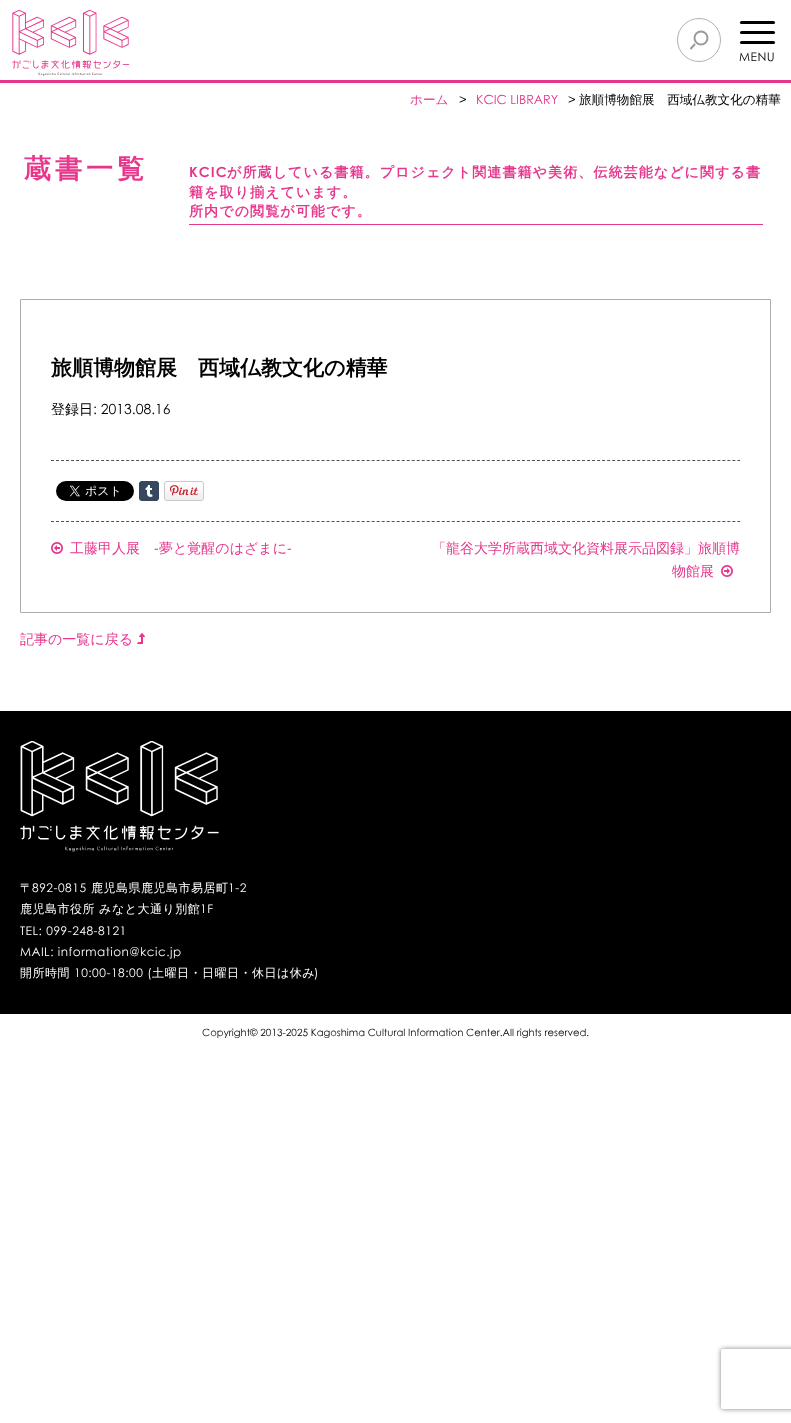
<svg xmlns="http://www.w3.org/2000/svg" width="791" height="1423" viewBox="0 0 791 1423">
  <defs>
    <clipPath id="clip1"><path d="M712 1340H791V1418H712ZM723 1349H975C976 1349 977 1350 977 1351V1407C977 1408 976 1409 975 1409H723C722 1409 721 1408 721 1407V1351C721 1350 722 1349 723 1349Z" clip-rule="evenodd"/></clipPath>
  </defs>
  <rect width="100%" height="100%" fill="#fff"/>
  <path d="M0 80h791v3H0z" fill="#e6378d"/>
  <circle cx="701" cy="38" r="6.5" fill="none" stroke="#999" stroke-width="2"/>
  <path d="M695 44L690.5 49" fill="none" stroke="#999" stroke-width="2"/>
  <circle cx="699" cy="40" r="21.5" fill="none" stroke="#b3b3b3"/>
  <image x="12" y="10" width="118" height="66" href="img/1.png"/>
  <rect x="740" y="21" width="35" height="3" rx="1.5" fill="#000"/>
  <rect x="740" y="31" width="35" height="3" rx="1.5" fill="#000"/>
  <rect x="740" y="41" width="35" height="3" rx="1.5" fill="#000"/>
  <path d="M189 224h574v1H189z" fill="#e6378d"/>
  <path d="M20.5 299.5h750v313H20.5z" fill="none" stroke="#acacac"/>
  <path d="M51 460.5H740" fill="none" stroke="#525252" stroke-dasharray="3 2.01"/>
  <path d="M51 521.5H740" fill="none" stroke="#525252" stroke-dasharray="3 2.01"/>
  <image x="56" y="481" width="78" height="20" href="img/2.png"/>
  <image x="139" y="481" width="20" height="20" href="img/3.png"/>
  <image x="164" y="481" width="40" height="20" href="img/4.png"/>
  <image x="51" y="542" width="12" height="12" href="img/5.png"/>
  <image x="721" y="565" width="12" height="12" href="img/6.png"/>
  <image x="137" y="633" width="8" height="11" href="img/7.png"/>
  <path d="M0 711h791v303H0z" fill="#000"/>
  <image x="20" y="741" width="199" height="111" href="img/8.png"/>
  <g clip-path="url(#clip1)">
    <rect x="721" y="1349" width="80" height="60" rx="2" fill="#808080" filter="blur(2.5px)"/>
  </g>
  <text x="739" y="61" font-family="Century Gothic" font-size="12" letter-spacing="0.5" fill="#000">MENU</text>
  <text x="410" y="104" font-family="WenQuanYi Zen Hei" font-size="12.6" font-weight="500" fill="#e6378d">ホーム</text>
  <text x="459" y="104" font-family="Century Gothic" font-size="12.6" fill="#000">&gt;</text>
  <text x="476" y="104" font-family="Century Gothic" font-size="12.6" fill="#e6378d">KCIC LIBRARY</text>
  <text x="568" y="104" font-family="Century Gothic" font-size="12.6" fill="#000">&gt;</text>
  <text x="579" y="104" font-family="WenQuanYi Zen Hei" font-size="12.6" font-weight="500" fill="#000">旅順博物館展　西域仏教文化の精華</text>
  <text x="24" y="178" font-family="WenQuanYi Zen Hei" font-size="27" font-weight="bold" letter-spacing="4" fill="#e6378d">蔵書一覧</text>
  <text x="189" y="177" font-family="Century Gothic" font-size="14" font-weight="bold" letter-spacing="1.1" fill="#e6378d">KCIC</text>
  <g font-family="WenQuanYi Zen Hei" font-size="14" font-weight="bold" letter-spacing="1.1" fill="#e6378d">
    <text x="227" y="177">が所蔵している書籍。プロジェクト関連書籍や美術、伝統芸能などに関する書</text>
    <text x="189" y="197">籍を取り揃えています。</text>
    <text x="189" y="216">所内での閲覧が可能です。</text>
  </g>
  <text x="51" y="375" font-family="WenQuanYi Zen Hei" font-size="21" font-weight="bold" fill="#000">旅順博物館展　西域仏教文化の精華</text>
  <text x="51" y="414" font-family="WenQuanYi Zen Hei" font-size="14" font-weight="500" fill="#000">登録日</text>
  <text x="93" y="414" font-family="Century Gothic" font-size="14" fill="#000">: 2013.08.16</text>
  <text x="70" y="553" font-family="WenQuanYi Zen Hei" font-size="14" font-weight="500" fill="#e6378d">工藤甲人展</text>
  <text x="154" y="553" font-family="Liberation Sans" font-size="14" fill="#e6378d">-</text>
  <text x="159" y="553" font-family="WenQuanYi Zen Hei" font-size="14" font-weight="500" fill="#e6378d">夢と覚醒のはざまに</text>
  <text x="287" y="553" font-family="Liberation Sans" font-size="14" fill="#e6378d">‐</text>
  <g font-family="WenQuanYi Zen Hei" font-size="14" font-weight="500" fill="#e6378d">
    <text x="432" y="553">「龍谷大学所蔵西域文化資料展示品図録」旅順博</text>
    <text x="672" y="576">物館展</text>
    <text x="20" y="644">記事の一覧に戻る</text>
  </g>
  <text x="20" y="892" font-family="WenQuanYi Zen Hei" font-size="12" font-weight="500" letter-spacing="0.5" fill="#fff">〒</text>
  <text x="32" y="892" font-family="Century Gothic" font-size="12" letter-spacing="0.5" fill="#fff">892-0815</text>
  <text x="91" y="892" font-family="WenQuanYi Zen Hei" font-size="12" font-weight="500" letter-spacing="0.5" fill="#fff">鹿児島県鹿児島市易居町</text>
  <text x="228" y="892" font-family="Century Gothic" font-size="12" letter-spacing="0.5" fill="#fff">1-2</text>
  <text x="20" y="913" font-family="WenQuanYi Zen Hei" font-size="12" font-weight="500" letter-spacing="0.5" fill="#fff">鹿児島市役所 みなと大通り別館</text>
  <g font-family="Century Gothic" font-size="12" letter-spacing="0.5" fill="#fff">
    <text x="200" y="913">1F</text>
    <text x="20" y="935">TEL: 099-248-8121</text>
    <text x="20" y="956">MAIL: information@kcic.jp</text>
  </g>
  <text x="20" y="977" font-family="WenQuanYi Zen Hei" font-size="12" font-weight="500" letter-spacing="0.5" fill="#fff">開所時間</text>
  <text x="74" y="977" font-family="Century Gothic" font-size="12" letter-spacing="0.5" fill="#fff">10:00-18:00 (</text>
  <text x="152" y="977" font-family="WenQuanYi Zen Hei" font-size="12" font-weight="500" letter-spacing="0.5" fill="#fff">土曜日・日曜日・休日は休み</text>
  <text x="314" y="977" font-family="Century Gothic" font-size="12" letter-spacing="0.5" fill="#fff">)</text>
  <text x="202" y="1036" font-family="Century Gothic" font-size="10" fill="#000">Copyright© 2013-2025 Kagoshima Cultural Information Center.All rights reserved.</text>
</svg>
